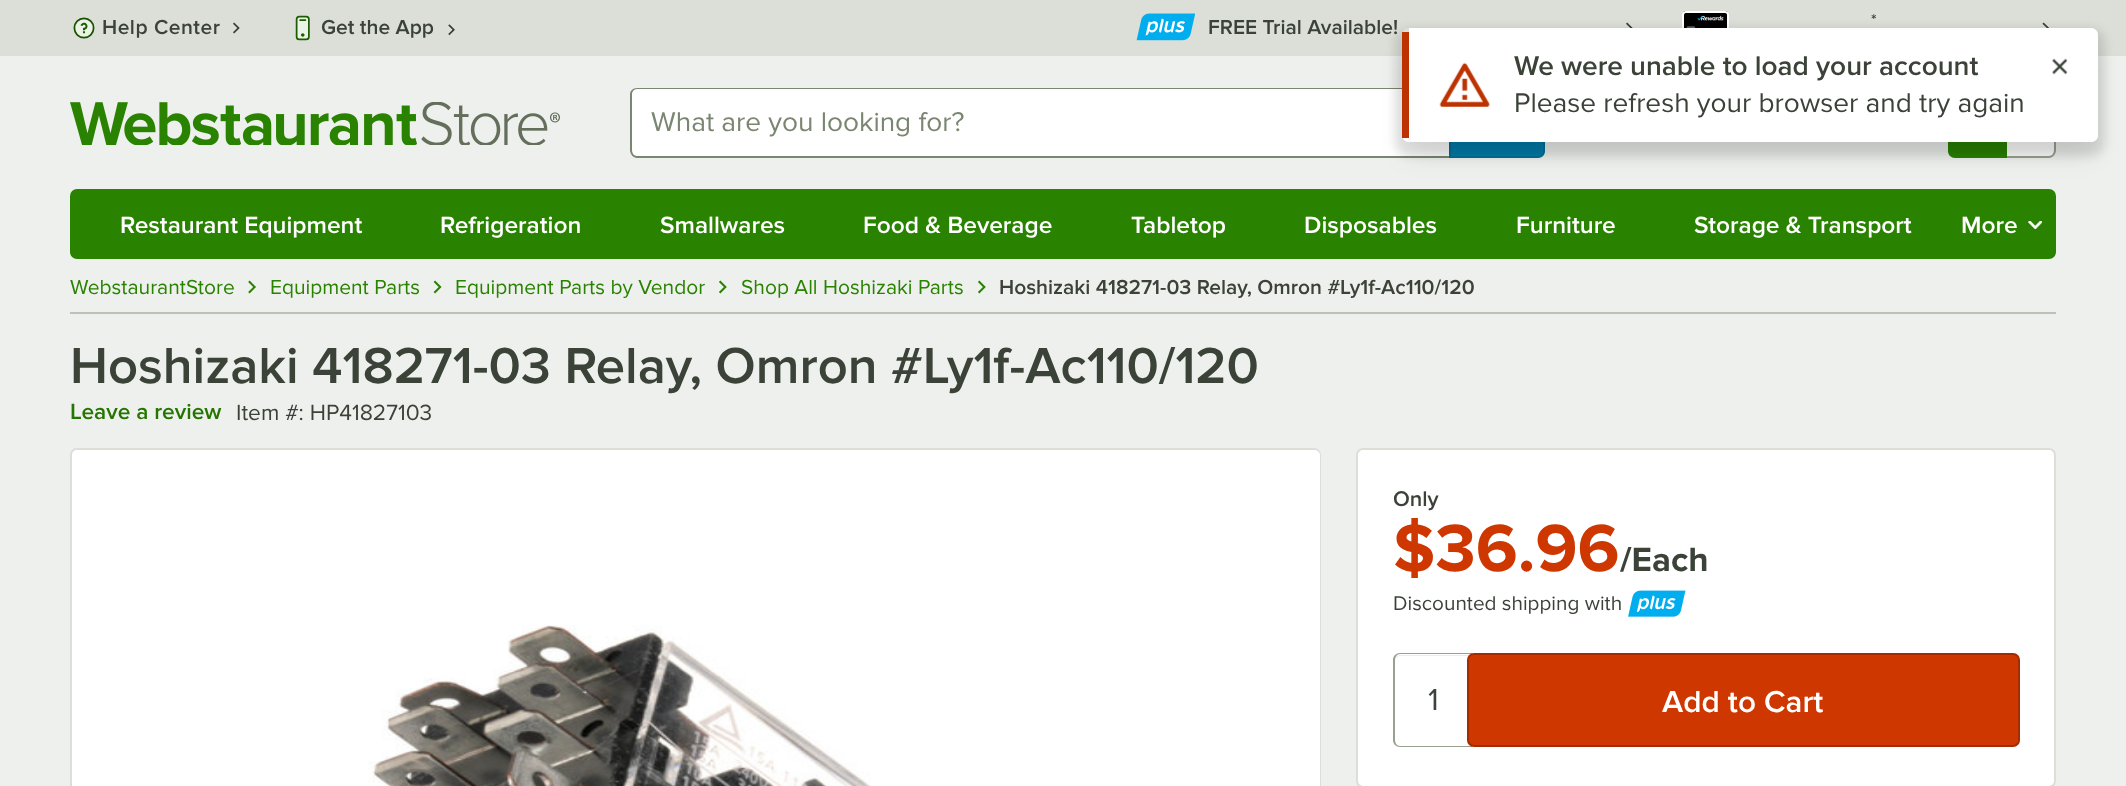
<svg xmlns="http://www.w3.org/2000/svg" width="2126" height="786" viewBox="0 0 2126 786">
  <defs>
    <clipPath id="clip1"><path d="M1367 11H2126V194H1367ZM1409 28H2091C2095 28 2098 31 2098 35V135C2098 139 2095 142 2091 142H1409C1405 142 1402 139 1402 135V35C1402 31 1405 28 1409 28Z" clip-rule="evenodd"/></clipPath>
    <clipPath id="clip2"><path d="M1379 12H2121V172H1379ZM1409 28H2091C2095 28 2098 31 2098 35V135C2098 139 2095 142 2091 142H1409C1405 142 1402 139 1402 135V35C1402 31 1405 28 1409 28Z" clip-rule="evenodd"/></clipPath>
  </defs>
  <rect width="100%" height="100%" fill="#eef0ed"/>
  <path d="M0 0h2126v56H0z" fill="#dbdfd8"/>
  <image x="73" y="17" width="22" height="22" href="img/1.png"/>
  <image x="233" y="22" width="7" height="12" href="img/2.png"/>
  <image x="295" y="15" width="15" height="26" href="img/3.png"/>
  <image x="448" y="24" width="7" height="12" href="img/4.png"/>
  <image x="1682" y="11" width="47" height="17" href="img/5.png"/>
  <image x="2042" y="22" width="7" height="6" href="img/6.png"/>
  <image x="1136" y="13" width="59" height="28" href="img/7.png"/>
  <image x="1626" y="22" width="7" height="6" href="img/8.png"/>
  <image x="70" y="102" width="490" height="43" href="img/9.png"/>
  <path d="M637 88H1449V158H637C633 158 630 155 630 151V95C630 91 633 88 637 88Z" fill="#fff"/>
  <path d="M637 88H1449V158H637C633 158 630 154 630 150V94C630 91 633 88 637 88ZM637 89H1449V156H637C634 156 632 153 632 150V94C632 92 634 89 637 89Z" fill="#7a8671" fill-rule="evenodd"/>
  <path d="M1449 88H1538C1542 88 1545 91 1545 95V151C1545 155 1542 158 1538 158H1449Z" fill="#007caa"/>
  <path d="M1450 89H1538C1541.5 89 1544 91.5 1544 95V151C1544 154.5 1541.5 157 1538 157H1450Z" fill="none" stroke="#0000001a" stroke-width="2"/>
  <path d="M1955 88H2007V158H1955C1951 158 1948 155 1948 151V95C1948 91 1951 88 1955 88Z" fill="#298200"/>
  <path d="M2007 89H2050C2053 89 2055 91 2055 94V151C2055 154 2053 156 2050 156H2007Z" fill="#fff"/>
  <path d="M2007 88H2049C2053 88 2056 91 2056 94V150C2056 154 2053 158 2049 158H2007ZM2007 89H2049C2052 89 2054 92 2054 94V150C2054 153 2052 156 2049 156H2007Z" fill="#97a18f" fill-rule="evenodd"/>
  <rect x="70" y="189" width="1986" height="70" rx="7" fill="#298200"/>
  <image x="2028" y="221" width="14" height="8" href="img/10.png"/>
  <path d="M70 312h1986v2H70z" fill="#bcc3b6"/>
  <image x="248" y="280" width="8" height="14" href="img/11.png"/>
  <image x="433" y="280" width="9" height="14" href="img/12.png"/>
  <image x="719" y="280" width="8" height="14" href="img/13.png"/>
  <image x="978" y="280" width="8" height="14" href="img/13.png"/>
  <g clip-path="url(#clip1)">
    <rect x="1407" y="51" width="686" height="103" rx="2" fill="#0000001a" filter="blur(13px)"/>
  </g>
  <g clip-path="url(#clip2)">
    <rect x="1395" y="28" width="710" height="128" rx="14" fill="#0000001a" filter="blur(5px)"/>
  </g>
  <path d="M1409 28H2091C2095 28 2098 31 2098 35V135C2098 139 2095 142 2091 142H1409Z" fill="#fff"/>
  <path d="M1402 32h7v106H1402z" fill="#bc3200"/>
  <image x="1439" y="62" width="51" height="45" href="img/14.png"/>
  <image x="2052" y="58" width="16" height="17" href="img/15.png"/>
  <path d="M77 450H1315C1318 450 1320 452 1320 455V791H72V455C72 452 74 450 77 450Z" fill="#fff"/>
  <path d="M77 448H1314C1318 448 1321 451 1321 455V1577H70V455C70 451 73 448 77 448ZM77 450H1314C1317 450 1320 452 1320 455V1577H72V455C72 452 74 450 77 450Z" fill="#dbdfd8" fill-rule="evenodd"/>
  <image x="368" y="625" width="503" height="161" href="img/16.png"/>
  <rect x="1357" y="449" width="698" height="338" rx="6" fill="#fff" stroke="#dbdfd8" stroke-width="2"/>
  <image x="1628" y="590" width="58" height="27" href="img/17.png"/>
  <path d="M1400 656H1472V655H1400C1397 655 1395 657 1395 660V662C1395 659 1397 656 1400 656Z" fill="#ececec"/>
  <path d="M1400 653H1472V747H1400C1396 747 1393 744 1393 740V660C1393 656 1396 653 1400 653ZM1400 654H1472V746H1400C1397 746 1395 743 1395 740V660C1395 657 1397 654 1400 654Z" fill="#97a18f" fill-rule="evenodd"/>
  <rect x="1467" y="653" width="553" height="94" rx="7" fill="#cf3700"/>
  <rect x="1468" y="654" width="551" height="92" rx="6" fill="none" stroke="#00000033" stroke-width="2"/>
  <text x="102" y="34" font-family="Proxima Nova" font-size="21" font-weight="600" letter-spacing="0.5" fill="#3b4238">Help Center</text>
  <text x="321" y="34" font-family="Proxima Nova" font-size="21" font-weight="600" fill="#3b4238">Get the App</text>
  <text x="1871" y="25" font-family="Proxima Nova" font-size="16" font-weight="600" fill="#3b4238">*</text>
  <text x="1208" y="34" font-family="Proxima Nova" font-size="21" font-weight="600" fill="#3b4238">FREE Trial Available!</text>
  <text x="651" y="131" font-family="Proxima Nova" font-size="28" fill="#7a8671">What are you looking for?</text>
  <g font-family="Proxima Nova" font-size="24.5" font-weight="600" fill="#fff">
    <text x="120" y="233">Restaurant Equipment</text>
    <text x="440" y="233">Refrigeration</text>
    <text x="660" y="233">Smallwares</text>
    <text x="863" y="233">Food &amp; Beverage</text>
    <text x="1131" y="233">Tabletop</text>
    <text x="1304" y="233">Disposables</text>
    <text x="1516" y="233">Furniture</text>
    <text x="1694" y="233">Storage &amp; Transport</text>
    <text x="1961" y="233">More</text>
  </g>
  <g font-family="Proxima Nova" font-size="21" fill="#298200">
    <text x="70" y="294">WebstaurantStore</text>
    <text x="270" y="294">Equipment Parts</text>
    <text x="455" y="294">Equipment Parts by Vendor</text>
    <text x="741" y="294">Shop All Hoshizaki Parts</text>
  </g>
  <text x="999" y="294" font-family="Proxima Nova" font-size="21" font-weight="600" fill="#3b4238">Hoshizaki 418271-03 Relay, Omron #Ly1f-Ac110/120</text>
  <text x="1514" y="75" font-family="Proxima Nova" font-size="28" font-weight="600" fill="#3b4238">We were unable to load your account</text>
  <text x="1514" y="112" font-family="Proxima Nova" font-size="28" fill="#3b4238">Please refresh your browser and try again</text>
  <text x="70" y="383" font-family="Proxima Nova" font-size="52.5" font-weight="600" fill="#3b4238">Hoshizaki 418271-03 Relay, Omron #Ly1f-Ac110/120</text>
  <text x="70" y="419" font-family="Proxima Nova" font-size="22.75" font-weight="600" fill="#257600">Leave a review</text>
  <text x="236" y="420" font-family="Proxima Nova" font-size="22.75" fill="#3b4238">Item #: HP41827103</text>
  <text x="1393" y="506" font-family="Proxima Nova" font-size="22" font-weight="600" fill="#3b4238">Only</text>
  <text x="1393" y="571" font-family="Proxima Nova" font-size="69" font-weight="bold" fill="#cf3700">$36.96</text>
  <text x="1620" y="571" font-family="Proxima Nova" font-size="35" font-weight="bold" fill="#3b4238">/Each</text>
  <text x="1393" y="610" font-family="Proxima Nova" font-size="20.75" fill="#3b4238">Discounted shipping with</text>
  <text x="1428" y="710" font-family="Proxima Nova" font-size="31.5" fill="#3b4238">1</text>
  <text x="1662" y="712" font-family="Proxima Nova" font-size="31.5" font-weight="600" fill="#fff">Add to Cart</text>
</svg>
